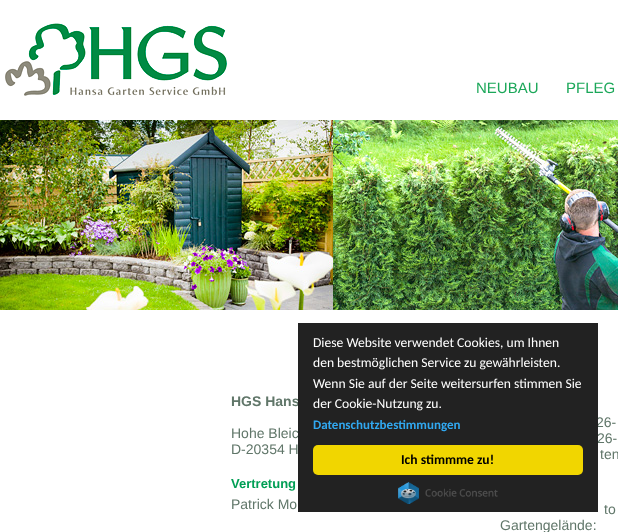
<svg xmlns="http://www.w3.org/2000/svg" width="618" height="532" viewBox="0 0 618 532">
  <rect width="100%" height="100%" fill="#fff"/>
  <image x="5" y="23" width="222" height="73" href="img/1.png"/>
  <image x="0" y="120" width="618" height="190" href="img/2.png"/>
  <g font-family="Liberation Sans" font-size="15" fill="#1ba759">
    <text x="476" y="93">NEUBAU</text>
    <text x="566" y="93">PFLEG</text>
  </g>
  <text x="231" y="406" font-family="Liberation Sans" font-size="14" font-weight="bold" fill="#607669">HGS Hans</text>
  <g font-family="Liberation Sans" font-size="14" fill="#607669">
    <text x="231" y="438">Hohe Bleic</text>
    <text x="231" y="454">D-20354 H</text>
  </g>
  <text x="231" y="488" font-family="Liberation Sans" font-size="13" font-weight="bold" fill="#009f55">Vertretung</text>
  <g font-family="Liberation Sans" font-size="14" fill="#607669">
    <text x="231" y="509">Patrick Mo</text>
    <text x="596" y="427">26-</text>
    <text x="597" y="443">26-</text>
    <text x="600" y="459">ten</text>
    <text x="604" y="514">to</text>
    <text x="500" y="530">Gartengelände:</text>
  </g>
  <path d="M298 323h300v189H298z" fill="#222"/>
  <g font-family="Carlito" font-size="13.6" fill="#fff">
    <text x="313" y="347">Diese Website verwendet Cookies, um Ihnen</text>
    <text x="313" y="367">den bestmöglichen Service zu gewährleisten.</text>
    <text x="313" y="388">Wenn Sie auf der Seite weitersurfen stimmen Sie</text>
    <text x="313" y="408">der Cookie-Nutzung zu.</text>
  </g>
  <text x="313" y="429" font-family="Carlito" font-size="13" font-weight="bold" fill="#31a8f0">Datenschutzbestimmungen</text>
  <rect x="313" y="445" width="270" height="30" rx="5" fill="#f1d600"/>
  <text x="401" y="464" font-family="Carlito" font-size="13.6" font-weight="bold" fill="#000">Ich stimmme zu!</text>
  <image x="398" y="482" width="100" height="22" href="img/3.png"/>
</svg>
